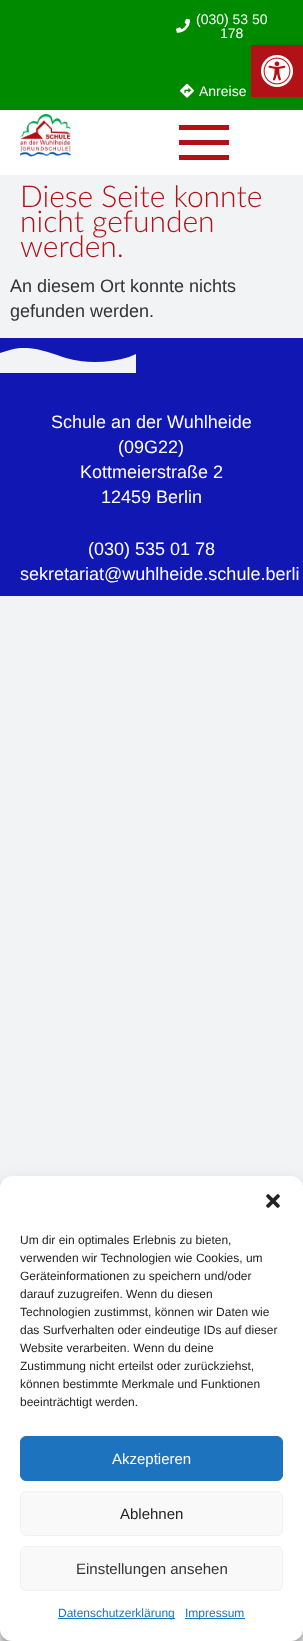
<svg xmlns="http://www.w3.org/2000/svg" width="303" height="1641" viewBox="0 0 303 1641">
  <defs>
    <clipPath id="clip1"><path d="M0 348h136v25H0z"/></clipPath>
  </defs>
  <rect width="100%" height="100%" fill="#f2f3f4"/>
  <path d="M0 0h303v110H0z" fill="#008a00"/>
  <image x="176" y="18" width="14" height="15" href="img/1.png"/>
  <image x="180" y="83" width="14" height="15" href="img/2.png"/>
  <path d="M0 110h303v65H0z" fill="#fff"/>
  <image x="20" y="114" width="51" height="43" href="img/3.png"/>
  <path d="M179 125h50v5H179z" fill="#b21117"/>
  <path d="M179 140h50v5H179z" fill="#b21117"/>
  <path d="M179 155h50v5H179z" fill="#b21117"/>
  <path d="M0 338h303v258H0z" fill="#1117b2"/>
  <g clip-path="url(#clip1)">
    <path d="M-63 371C-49 370-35 367-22 362C-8 356 5 350 20 348C36 347 51 353 66 358C86 364 109 363 129 357L136 354V373H-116V364C-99 371-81 373-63 371Z" fill="#f2f3f4"/>
  </g>
  <path d="M251 45h52v52H251z" fill="#0000001a" filter="blur(5px)"/>
  <path d="M251 45h52v52H251z" fill="#b21117"/>
  <image x="261" y="55" width="32" height="32" href="img/4.png"/>
  <rect y="1182" width="303" height="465" rx="12" fill="#0000003b" filter="blur(3px)"/>
  <rect y="1186" width="303" height="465" rx="12" fill="#00000030" filter="blur(10px)"/>
  <rect y="1176" width="303" height="465" rx="12" fill="#fff"/>
  <image x="266" y="1194" width="14" height="14" href="img/5.png"/>
  <rect x="20.5" y="1436.5" width="262" height="44" rx="5.5" fill="#1e73be" stroke="#1e73be"/>
  <rect x="20.5" y="1491.5" width="262" height="44" rx="5.5" fill="#f9f9f9" stroke="#f2f2f2"/>
  <rect x="20.5" y="1546.5" width="262" height="44" rx="5.5" fill="#f9f9f9" stroke="#f2f2f2"/>
  <path d="M58 1618h117v1H58z" fill="#1e73be"/>
  <path d="M185 1618h60v1H185z" fill="#1e73be"/>
  <g font-family="Liberation Sans" font-size="14" fill="#fff">
    <text x="196" y="24">(030) 53 50</text>
    <text x="220" y="38">178</text>
    <text x="199" y="96">Anreise</text>
  </g>
  <g font-family="Lato" font-size="30" font-weight="300" fill="#b21117">
    <text x="20" y="207">Diese Seite konnte</text>
    <text x="20" y="232">nicht gefunden</text>
    <text x="20" y="257">werden.</text>
  </g>
  <g font-family="Liberation Sans" font-size="18" fill="#333">
    <text x="10" y="292">An diesem Ort konnte nichts</text>
    <text x="10" y="317">gefunden werden.</text>
  </g>
  <g font-family="Liberation Sans" font-size="18" fill="#fff">
    <text x="51" y="428">Schule an der Wuhlheide</text>
    <text x="118" y="453">(09G22)</text>
    <text x="80" y="478">Kottmeierstraße 2</text>
    <text x="101" y="503">12459 Berlin</text>
    <text x="88" y="555">(030) 535 01 78</text>
    <text x="20" y="580">sekretariat@wuhlheide.schule.berli</text>
  </g>
  <g font-family="Liberation Sans" font-size="12" fill="#222">
    <text x="20" y="1244">Um dir ein optimales Erlebnis zu bieten,</text>
    <text x="20" y="1262">verwenden wir Technologien wie Cookies, um</text>
    <text x="20" y="1280">Geräteinformationen zu speichern und/oder</text>
    <text x="20" y="1298">darauf zuzugreifen. Wenn du diesen</text>
    <text x="20" y="1316">Technologien zustimmst, können wir Daten wie</text>
    <text x="20" y="1334">das Surfverhalten oder eindeutige IDs auf dieser</text>
    <text x="20" y="1352">Website verarbeiten. Wenn du deine</text>
    <text x="20" y="1370">Zustimmung nicht erteilst oder zurückziehst,</text>
    <text x="20" y="1388">können bestimmte Merkmale und Funktionen</text>
    <text x="20" y="1406">beeinträchtigt werden.</text>
  </g>
  <text x="112" y="1464" font-family="Liberation Sans" font-size="15" fill="#fff">Akzeptieren</text>
  <text x="120" y="1519" font-family="Liberation Sans" font-size="15" fill="#222">Ablehnen</text>
  <text x="76" y="1574" font-family="Liberation Sans" font-size="15" fill="#333">Einstellungen ansehen</text>
  <g font-family="Liberation Sans" font-size="12" fill="#1e73be">
    <text x="58" y="1617">Datenschutzerklärung</text>
    <text x="185" y="1617">Impressum</text>
  </g>
</svg>
